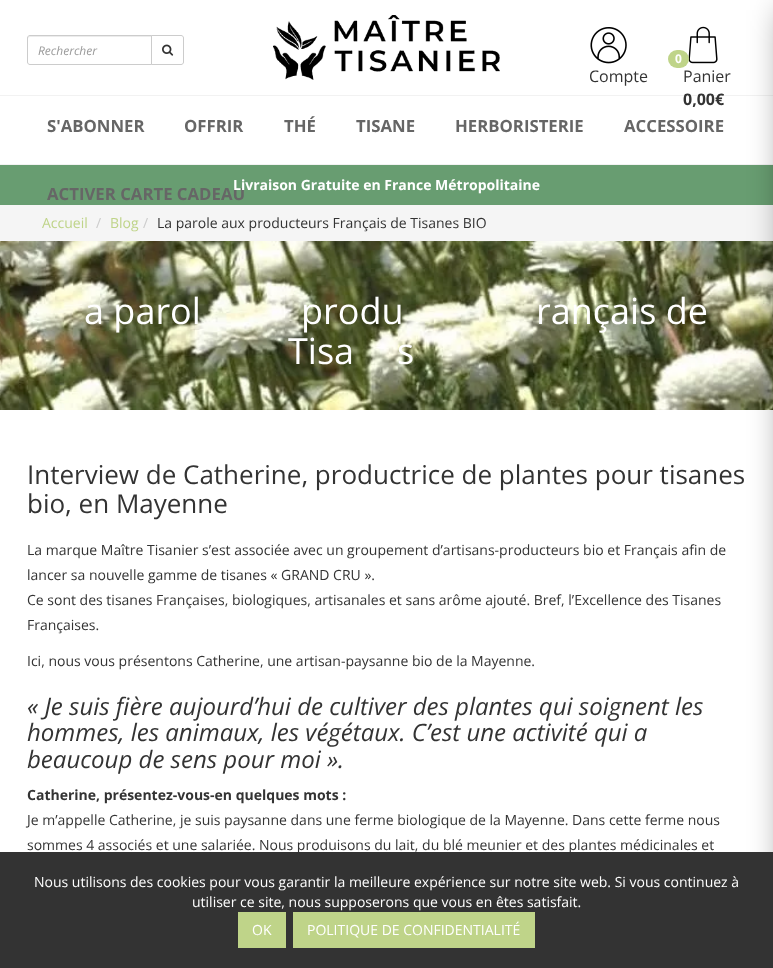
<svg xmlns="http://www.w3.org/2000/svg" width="773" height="968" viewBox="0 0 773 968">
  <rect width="100%" height="100%" fill="#fff"/>
  <path d="M30 37H151V36H30C28 36 28 38 28 39C28 38 29 37 30 37Z" fill="#ececec"/>
  <path d="M30 35.5H151.5V64.5H30C28.5 64.5 27.5 63.5 27.5 62V38C27.5 36.5 28.5 35.5 30 35.5Z" fill="none" stroke="#ccc"/>
  <path d="M151.5 35.5H181C182.5 35.5 183.5 36.5 183.5 38V62C183.5 63.5 182.5 64.5 181 64.5H151.5Z" fill="#fff" stroke="#ccc"/>
  <image x="162" y="44" width="12" height="12" href="img/1.png"/>
  <image x="273" y="15" width="227" height="65" href="img/2.png"/>
  <image x="590" y="27" width="37" height="37" href="img/3.png"/>
  <image x="688" y="26" width="30" height="38" href="img/4.png"/>
  <rect x="668" y="50" width="21" height="18" rx="9" fill="#bfd489"/>
  <path d="M0 95h773v1H0z" fill="#f2f2f2"/>
  <path d="M0 164h773v1H0z" fill="#f2f2f2"/>
  <path d="M0 165h773v40H0z" fill="#689d71"/>
  <path d="M0 205h773v36H0z" fill="#f5f5f5"/>
  <image x="0" y="241" width="773" height="169" href="img/5.png"/>
  <path d="M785 10h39v948H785z" fill="#00000082" filter="blur(17px)"/>
  <path d="M0 852h773v116H0z" fill="#333"/>
  <path d="M238 912h48v36H238z" fill="#bfd489"/>
  <path d="M293 912h242v36H293z" fill="#bfd489"/>
  <text x="38" y="55" font-family="Open Sans" font-size="12" font-style="italic" fill="#999">Rechercher</text>
  <text x="589" y="82" font-family="Open Sans" font-size="16" fill="#333">Compte</text>
  <text x="675" y="63" font-family="Open Sans" font-size="12" font-weight="bold" fill="#fff">0</text>
  <text x="683" y="82" font-family="Open Sans" font-size="16" fill="#333">Panier</text>
  <text x="683" y="105" font-family="Open Sans" font-size="16" font-weight="bold" fill="#333">0,00€</text>
  <g font-family="Open Sans" font-size="16.75" font-weight="bold" fill="#666">
    <text x="47" y="132">S'ABONNER</text>
    <text x="184" y="132">OFFRIR</text>
    <text x="284" y="132">THÉ</text>
    <text x="356" y="132">TISANE</text>
    <text x="455" y="132">HERBORISTERIE</text>
    <text x="624" y="132">ACCESSOIRE</text>
    <text x="47" y="200">ACTIVER CARTE CADEAU</text>
  </g>
  <text x="233" y="190" font-family="Open Sans" font-size="14" font-weight="bold" fill="#fff">Livraison Gratuite en France Métropolitaine</text>
  <text x="42" y="228" font-family="Open Sans" font-size="14" fill="#bfd489">Accueil</text>
  <text x="96" y="228" font-family="Open Sans" font-size="14" fill="#ccc">/</text>
  <text x="110" y="228" font-family="Open Sans" font-size="14" fill="#bfd489">Blog</text>
  <text x="143" y="228" font-family="Open Sans" font-size="14" fill="#ccc">/</text>
  <text x="157" y="228" font-family="Open Sans" font-size="14" fill="#333">La parole aux producteurs Français de Tisanes BIO</text>
  <g font-family="Open Sans" font-size="36" fill="#fff">
    <text x="84" y="324">a parol</text>
    <text x="301" y="324">produ</text>
    <text x="536" y="324">rançais de</text>
    <text x="288" y="364">Tisa</text>
    <text x="397" y="364">s</text>
  </g>
  <g font-family="Open Sans" font-size="26" fill="#333">
    <text x="27" y="484">Interview de Catherine, productrice de plantes pour tisanes</text>
    <text x="27" y="513">bio, en Mayenne</text>
  </g>
  <g font-family="Open Sans" font-size="14" fill="#333">
    <text x="27" y="555">La marque Maître Tisanier s’est associée avec un groupement d’artisans-producteurs bio et Français afin de</text>
    <text x="27" y="580">lancer sa nouvelle gamme de tisanes « GRAND CRU ».</text>
    <text x="27" y="605">Ce sont des tisanes Françaises, biologiques, artisanales et sans arôme ajouté. Bref, l’Excellence des Tisanes</text>
    <text x="27" y="630">Françaises.</text>
    <text x="27" y="666">Ici, nous vous présentons Catherine, une artisan-paysanne bio de la Mayenne.</text>
  </g>
  <g font-family="Open Sans" font-size="24" font-style="italic" fill="#333">
    <text x="27" y="715">« Je suis fière aujourd’hui de cultiver des plantes qui soignent les</text>
    <text x="27" y="741">hommes, les animaux, les végétaux. C’est une activité qui a</text>
    <text x="27" y="768">beaucoup de sens pour moi ».</text>
  </g>
  <text x="27" y="800" font-family="Open Sans" font-size="14" font-weight="bold" fill="#333">Catherine, présentez-vous-en quelques mots :</text>
  <g font-family="Open Sans" font-size="14" fill="#333">
    <text x="27" y="825">Je m’appelle Catherine, je suis paysanne dans une ferme biologique de la Mayenne. Dans cette ferme nous</text>
    <text x="27" y="850">sommes 4 associés et une salariée. Nous produisons du lait, du blé meunier et des plantes médicinales et</text>
  </g>
  <g font-family="Open Sans" font-size="14" fill="#fff">
    <text x="34" y="887">Nous utilisons des cookies pour vous garantir la meilleure expérience sur notre site web. Si vous continuez à</text>
    <text x="192" y="907">utiliser ce site, nous supposerons que vous en êtes satisfait.</text>
    <text x="252" y="935">OK</text>
    <text x="307" y="935">POLITIQUE DE CONFIDENTIALITÉ</text>
  </g>
</svg>
